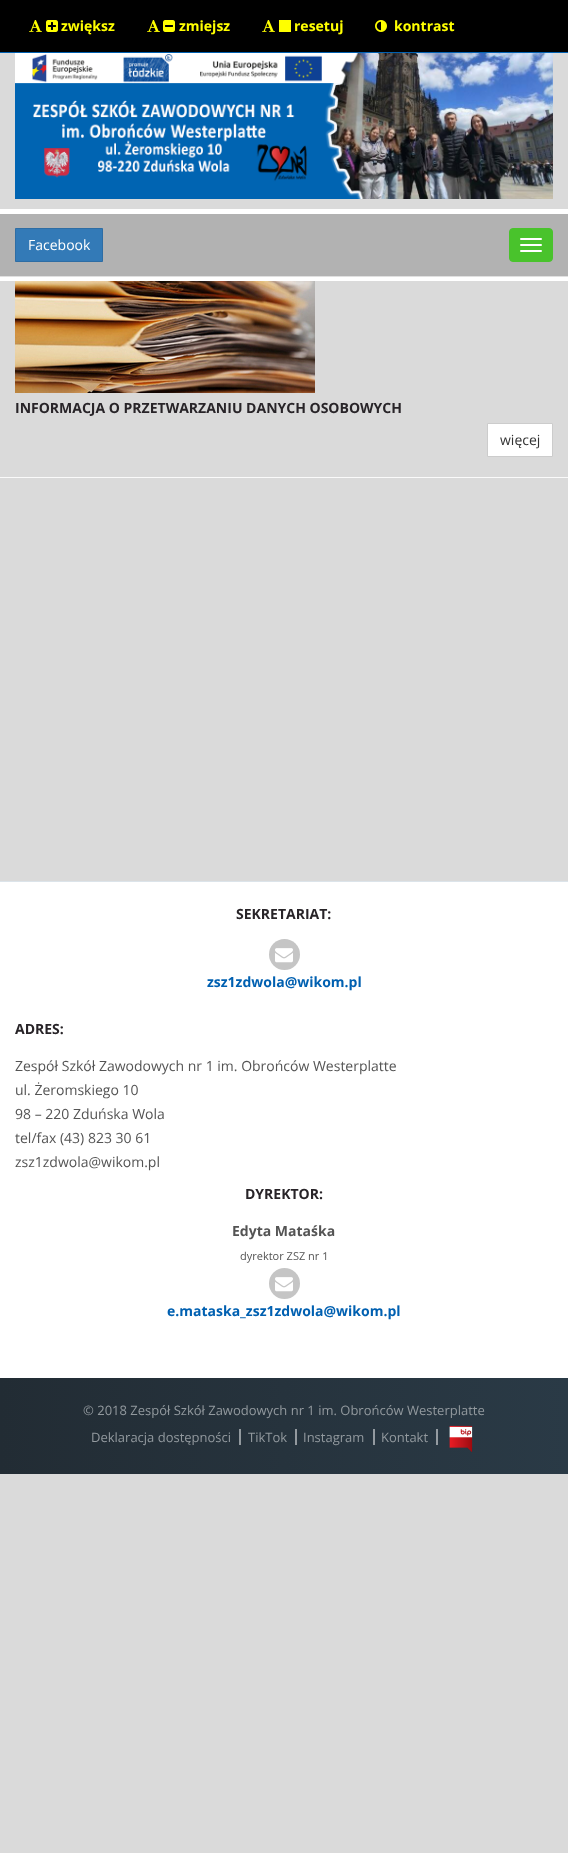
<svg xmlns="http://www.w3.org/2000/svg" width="568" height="1853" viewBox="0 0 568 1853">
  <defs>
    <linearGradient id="g1" gradientUnits="userSpaceOnUse" x1="0" y1="1426" x2="568" y2="1426"><stop offset="0" stop-color="#222c34"/><stop offset="1" stop-color="#2a3a46"/></linearGradient>
  </defs>
  <rect width="100%" height="100%" fill="#dadada"/>
  <path d="M0 0h568v52H0z" fill="#000"/>
  <image x="29" y="20" width="13" height="12" href="img/1.png"/>
  <image x="46" y="20" width="12" height="12" href="img/2.png"/>
  <image x="147" y="20" width="13" height="12" href="img/1.png"/>
  <image x="163" y="20" width="12" height="12" href="img/3.png"/>
  <image x="262" y="20" width="13" height="12" href="img/1.png"/>
  <path d="M279 20h12v12H279z" fill="#ff0"/>
  <image x="375" y="20" width="12" height="12" href="img/4.png"/>
  <path d="M0 52h568v1H0z" fill="#0060b1"/>
  <image x="330" y="53" width="223" height="146" href="img/6.png"/>
  <image x="15" y="53" width="359" height="146" href="img/5.png"/>
  <path d="M0 209h568v72H0z" fill="#fff"/>
  <path d="M0 215h568v62H0z" fill="#0000001f" filter="blur(0.5px)"/>
  <path d="M0 214h568v62H0z" fill="#b2b2b2"/>
  <path d="M15.5 228.5h87v33H15.5z" fill="#337ab7" stroke="#2e6da4"/>
  <rect x="509.5" y="228.5" width="43" height="33" rx="3.5" fill="#49c32c" stroke="#49c32c"/>
  <rect x="520" y="238" width="22" height="2" rx="1" fill="#fff"/>
  <rect x="520" y="244" width="22" height="2" rx="1" fill="#fff"/>
  <rect x="520" y="250" width="22" height="2" rx="1" fill="#fff"/>
  <path d="M0 477h568v1H0z" fill="#fafafa"/>
  <image x="15" y="281" width="300" height="112" href="img/7.png"/>
  <path d="M487.5 423.5h65v33H487.5z" fill="#fff" stroke="#ccc"/>
  <path d="M0 882h568v496H0z" fill="#fff"/>
  <path d="M0 881h568v1H0z" fill="#dce4ea"/>
  <circle cx="284.5" cy="954.5" r="15.5" fill="#c5c5c5"/>
  <image x="275" y="948" width="18" height="15" href="img/8.png"/>
  <circle cx="284.5" cy="1283.5" r="15.5" fill="#c5c5c5"/>
  <image x="275" y="1277" width="18" height="15" href="img/8.png"/>
  <path d="M0 1378h568v96H0z" fill="url(#g1)"/>
  <path d="M239 1429h2v16H239z" fill="#92999e"/>
  <path d="M295 1429h2v16H295z" fill="#93999e"/>
  <path d="M373 1429h2v16H373z" fill="#939aa0"/>
  <path d="M436 1429h2v16H436z" fill="#949ba1"/>
  <image x="449" y="1425" width="24" height="27" href="img/9.png"/>
  <g font-family="Open Sans" font-size="14" font-weight="bold" fill="#ff0">
    <text x="61" y="31">zwiększ</text>
    <text x="179" y="31">zmiejsz</text>
    <text x="294" y="31">resetuj</text>
    <text x="394" y="31">kontrast</text>
  </g>
  <text x="28" y="250" font-family="Open Sans" font-size="14" fill="#fff">Facebook</text>
  <text x="15" y="413" font-family="Open Sans" font-size="14" font-weight="bold" fill="#282428">INFORMACJA O PRZETWARZANIU DANYCH OSOBOWYCH</text>
  <text x="500" y="445" font-family="Open Sans" font-size="14" fill="#333">więcej</text>
  <text x="236" y="919" font-family="Open Sans" font-size="14" font-weight="bold" fill="#282428">SEKRETARIAT:</text>
  <text x="207" y="987" font-family="Open Sans" font-size="14" font-weight="bold" fill="#0060b1">zsz1zdwola@wikom.pl</text>
  <text x="15" y="1034" font-family="Open Sans" font-size="14" font-weight="bold" fill="#282428">ADRES:</text>
  <g font-family="Open Sans" font-size="14" fill="#545454">
    <text x="15" y="1071">Zespół Szkół Zawodowych nr 1 im. Obrońców Westerplatte</text>
    <text x="15" y="1095">ul. Żeromskiego 10</text>
    <text x="15" y="1119">98 – 220 Zduńska Wola</text>
    <text x="15" y="1143">tel/fax (43) 823 30 61</text>
    <text x="15" y="1167">zsz1zdwola@wikom.pl</text>
  </g>
  <text x="245" y="1199" font-family="Open Sans" font-size="14" font-weight="bold" fill="#282428">DYREKTOR:</text>
  <text x="232" y="1236" font-family="Open Sans" font-size="14" font-weight="bold" fill="#545454">Edyta Mataśka</text>
  <text x="240" y="1260" font-family="Open Sans" font-size="11" fill="#545454">dyrektor ZSZ nr 1</text>
  <text x="167" y="1316" font-family="Open Sans" font-size="14" font-weight="bold" fill="#0060b1">e.mataska_zsz1zdwola@wikom.pl</text>
  <g font-family="Open Sans" font-size="13" fill="#92999e">
    <text x="83" y="1415">© 2018 Zespół Szkół Zawodowych nr 1 im. Obrońców Westerplatte</text>
    <text x="91" y="1442">Deklaracja dostępności</text>
    <text x="248" y="1442">TikTok</text>
    <text x="303" y="1442">Instagram</text>
    <text x="381" y="1442">Kontakt</text>
  </g>
</svg>
